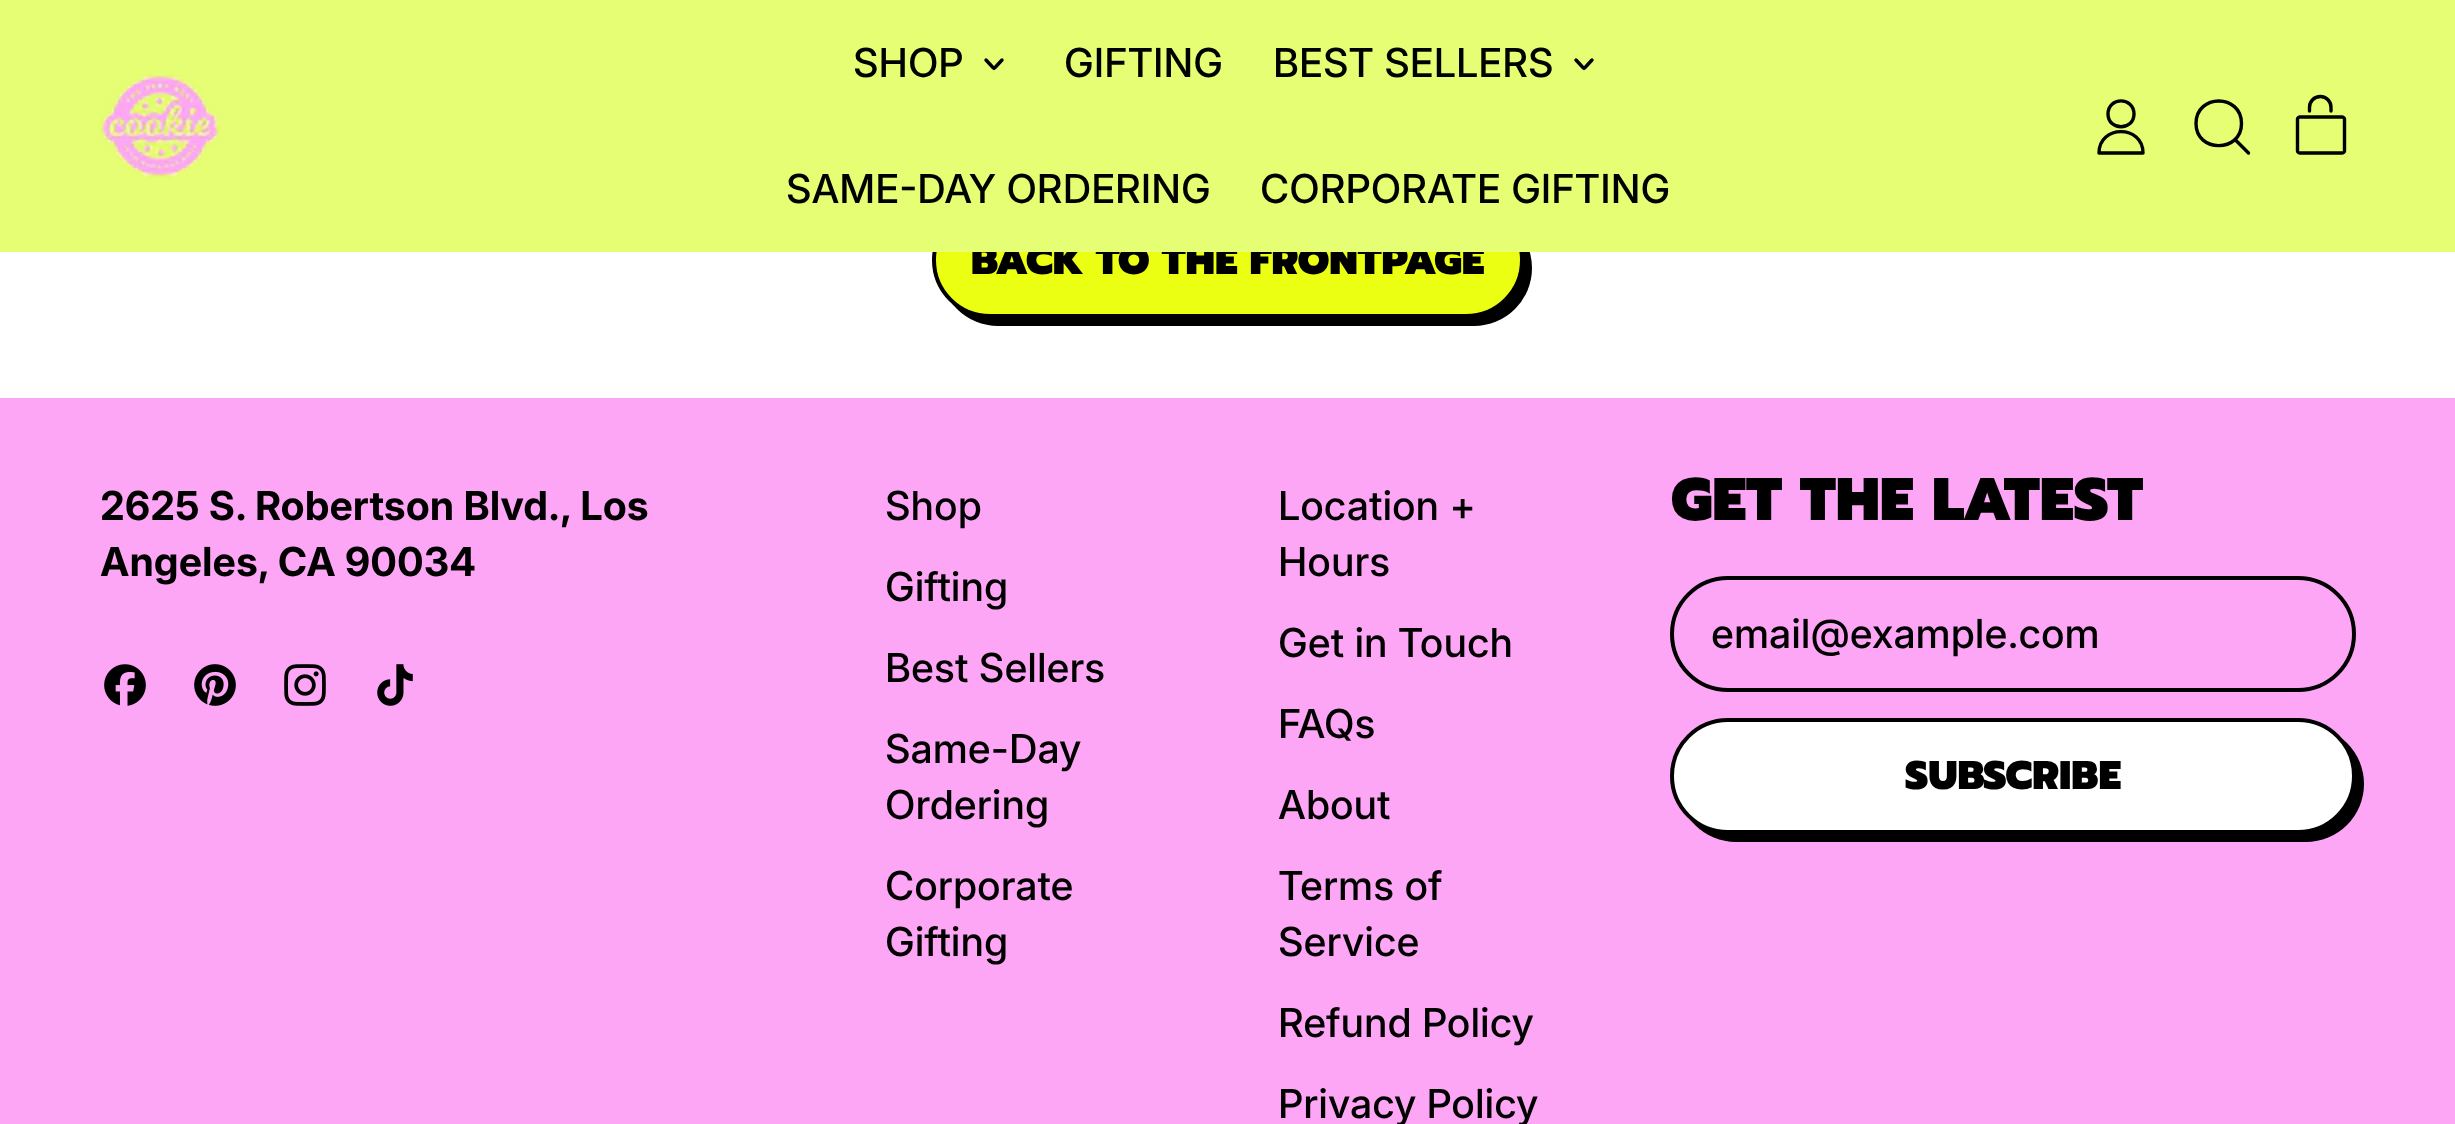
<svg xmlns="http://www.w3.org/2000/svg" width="2455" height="1124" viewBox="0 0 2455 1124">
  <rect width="100%" height="100%" fill="#fff"/>
  <rect x="940" y="210" width="592" height="116" rx="58" fill="#000"/>
  <rect x="934" y="204" width="588" height="112" rx="56" fill="#eaff12" stroke="#000" stroke-width="4"/>
  <path d="M0 398h2455v726H0z" fill="#fda6f5"/>
  <image x="104" y="664" width="42" height="42" href="img/2.png"/>
  <image x="194" y="664" width="42" height="42" href="img/3.png"/>
  <image x="284" y="664" width="42" height="42" href="img/4.png"/>
  <image x="377" y="664" width="36" height="42" href="img/5.png"/>
  <rect x="1672" y="578" width="682" height="112" rx="56" fill="none" stroke="#000" stroke-width="4"/>
  <rect x="1678" y="726" width="686" height="116" rx="58" fill="#000"/>
  <rect x="1672" y="720" width="682" height="112" rx="56" fill="#fff" stroke="#000" stroke-width="4"/>
  <text x="971" y="274" font-family="Prompt" font-size="40" font-weight="900" fill="#000">BACK TO THE FRONTPAGE</text>
  <path d="M0 0h2455v252H0z" fill="#e6fe74"/>
  <path d="M2342 117H2300C2299 117 2297.5 118 2297.5 119V151C2297.5 152 2299 153 2300 153H2342C2343 153 2344.5 152 2344.5 151V119C2344.5 118 2343 117 2342 117ZM2309.5 111V107.5C2309.5 101.5 2314 96.5 2320.5 96.5C2326.5 96.5 2331 101.5 2331 107.5V111" fill="none" stroke="#000" stroke-width="3.4" stroke-linecap="round" stroke-linejoin="round"/>
  <path d="M1576 60L1582.5 67C1584.5 69 1583.5 69 1585.5 67L1592 60" fill="none" stroke="#000" stroke-width="3.4" stroke-linecap="round" stroke-linejoin="round"/>
  <text x="1273" y="77" font-family="Inter" font-size="40" font-weight="500" fill="#000">BEST SELLERS</text>
  <path d="M986 60L992.5 67C994.5 69 993.5 69 995.5 67L1002 60" fill="none" stroke="#000" stroke-width="3.4" stroke-linecap="round" stroke-linejoin="round"/>
  <text x="853" y="77" font-family="Inter" font-size="40" font-weight="500" fill="#000">SHOP</text>
  <path d="M2196 123.5C2196 153 2241.5 153 2241.5 123.5C2241.5 93.5 2196 93.5 2196 123.5ZM2248.5 153L2235.5 140" fill="none" stroke="#000" stroke-width="3.4" stroke-linecap="round" stroke-linejoin="round"/>
  <path d="M2108 114C2108 131 2134 131 2134 114C2134 96.5 2108 96.5 2108 114ZM2099 153C2099 124.5 2143 124.5 2143 153Z" fill="none" stroke="#000" stroke-width="3.4" stroke-linecap="round" stroke-linejoin="round"/>
  <g font-family="Inter" font-size="40" font-weight="500" fill="#000">
    <text x="1260" y="203">CORPORATE GIFTING</text>
    <text x="786" y="203">SAME-DAY ORDERING</text>
    <text x="1064" y="77">GIFTING</text>
  </g>
  <image x="100" y="74" width="120" height="104" href="img/1.png"/>
  <g font-family="Inter" font-size="40" font-weight="bold" fill="#000">
    <text x="100" y="520">2625 S. Robertson Blvd., Los</text>
    <text x="100" y="576">Angeles, CA 90034</text>
  </g>
  <g font-family="Inter" font-size="40" font-weight="500" fill="#000">
    <text x="885" y="520">Shop</text>
    <text x="885" y="601">Gifting</text>
    <text x="885" y="682">Best Sellers</text>
    <text x="885" y="763">Same-Day</text>
    <text x="885" y="819">Ordering</text>
    <text x="885" y="900">Corporate</text>
    <text x="885" y="956">Gifting</text>
    <text x="1278" y="520">Location +</text>
    <text x="1278" y="576">Hours</text>
    <text x="1278" y="657">Get in Touch</text>
    <text x="1278" y="738">FAQs</text>
    <text x="1278" y="819">About</text>
    <text x="1278" y="900">Terms of</text>
    <text x="1278" y="956">Service</text>
    <text x="1278" y="1037">Refund Policy</text>
    <text x="1278" y="1118">Privacy Policy</text>
  </g>
  <text x="1671" y="520" font-family="Prompt" font-size="60" font-weight="900" fill="#000">GET THE LATEST</text>
  <text x="1711" y="648" font-family="Inter" font-size="40" font-weight="500" fill="#000">email@example.com</text>
  <text x="1905" y="789" font-family="Prompt" font-size="40" font-weight="900" fill="#000">SUBSCRIBE</text>
</svg>
